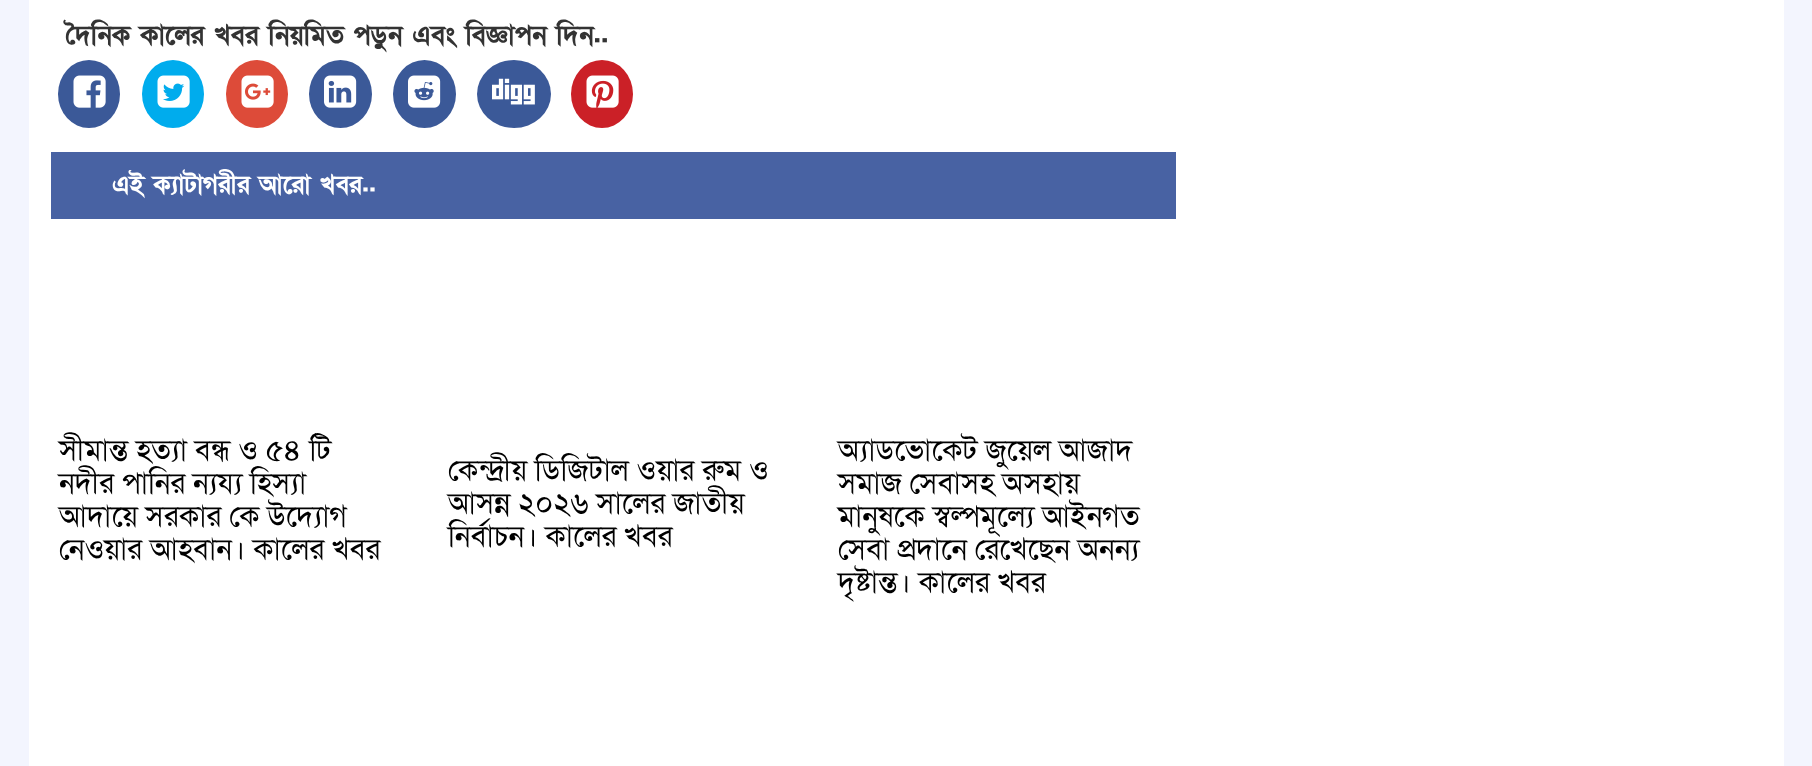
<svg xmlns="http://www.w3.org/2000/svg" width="1812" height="766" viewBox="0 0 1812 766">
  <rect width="100%" height="100%" fill="#f3f5fe"/>
  <path d="M29 0h1755v766H29z" fill="#fff"/>
  <ellipse cx="89" cy="94" rx="31" ry="34" fill="#3b5998"/>
  <image x="73" y="75" width="33" height="33" href="img/1.png"/>
  <ellipse cx="173" cy="94" rx="31" ry="34" fill="#00aced"/>
  <image x="157" y="75" width="33" height="33" href="img/2.png"/>
  <ellipse cx="257" cy="94" rx="31" ry="34" fill="#dd4b39"/>
  <image x="241" y="75" width="33" height="33" href="img/3.png"/>
  <ellipse cx="340.5" cy="94" rx="31.5" ry="34" fill="#3b5998"/>
  <image x="324" y="75" width="33" height="33" href="img/4.png"/>
  <ellipse cx="424.5" cy="94" rx="31.5" ry="34" fill="#3b5998"/>
  <image x="408" y="75" width="33" height="33" href="img/5.png"/>
  <ellipse cx="514" cy="94" rx="37" ry="34" fill="#3b5998"/>
  <image x="492" y="78" width="43" height="27" href="img/6.png"/>
  <ellipse cx="602" cy="94" rx="31" ry="34" fill="#cb2027"/>
  <image x="586" y="75" width="33" height="33" href="img/7.png"/>
  <path d="M51 152h1125v67H51z" fill="#4862a3"/>
  <text x="66" y="44" font-family="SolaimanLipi" font-size="27" font-weight="bold" fill="#333">দৈনিক কালের খবর নিয়মিত পড়ুন এবং বিজ্ঞাপন দিন..</text>
  <text x="112" y="193" font-family="SolaimanLipi" font-size="25.5" font-weight="bold" fill="#fff">এই ক্যাটাগরীর আরো খবর..</text>
  <g font-family="SolaimanLipi" font-size="30" fill="#000">
    <text x="59" y="460">সীমান্ত হত্যা বন্ধ ও ৫৪ টি</text>
    <text x="59" y="493">নদীর পানির ন্যয্য হিস্যা</text>
    <text x="59" y="526">আদায়ে সরকার কে উদ্যোগ</text>
    <text x="59" y="559">নেওয়ার আহবান। কালের খবর</text>
    <text x="448" y="480">কেন্দ্রীয় ডিজিটাল ওয়ার রুম ও</text>
    <text x="448" y="513">আসন্ন ২০২৬ সালের জাতীয়</text>
    <text x="448" y="546">নির্বাচন। কালের খবর</text>
    <text x="838" y="460">অ্যাডভোকেট জুয়েল আজাদ</text>
    <text x="838" y="493">সমাজ সেবাসহ অসহায়</text>
    <text x="838" y="526">মানুষকে স্বল্পমূল্যে আইনগত</text>
    <text x="838" y="559">সেবা প্রদানে রেখেছেন অনন্য</text>
    <text x="838" y="592">দৃষ্টান্ত। কালের খবর</text>
  </g>
</svg>
